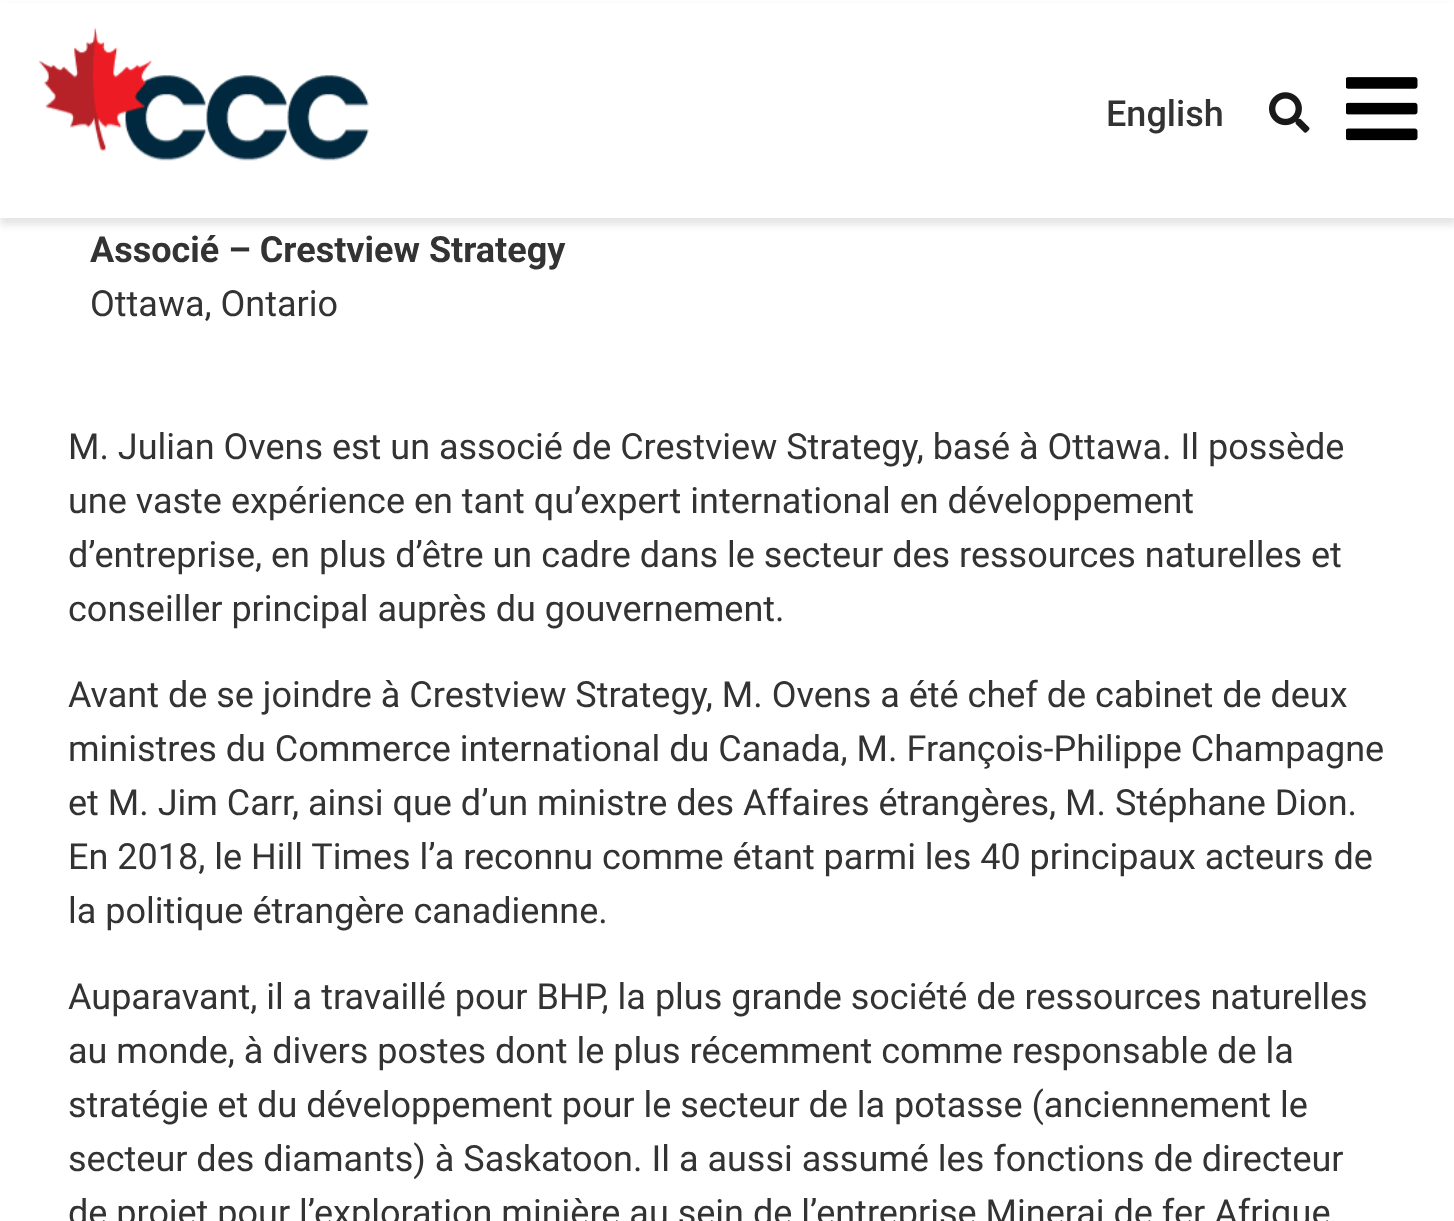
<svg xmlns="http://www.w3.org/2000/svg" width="1454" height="1221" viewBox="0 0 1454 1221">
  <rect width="100%" height="100%" fill="#fff"/>
  <path d="M0 7h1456v218H0z" fill="#0000001a" filter="blur(3.5px)"/>
  <path d="M0 3h1454v215H0z" fill="#fff"/>
  <image x="39" y="27" width="330" height="134" href="img/1.png"/>
  <image x="1269" y="92" width="41" height="41" href="img/2.png"/>
  <image x="1346" y="77" width="72" height="64" href="img/3.png"/>
  <text x="1106" y="126" font-family="Roboto" font-size="36" font-weight="500" fill="#333">English</text>
  <text x="90" y="262" font-family="Roboto" font-size="36" font-weight="bold" fill="#333">Associé – Crestview Strategy</text>
  <g font-family="Roboto" font-size="36" fill="#333">
    <text x="90" y="316">Ottawa, Ontario</text>
    <text x="68" y="459">M. Julian Ovens est un associé de Crestview Strategy, basé à Ottawa. Il possède</text>
    <text x="68" y="513">une vaste expérience en tant qu’expert international en développement</text>
    <text x="68" y="567">d’entreprise, en plus d’être un cadre dans le secteur des ressources naturelles et</text>
    <text x="68" y="621">conseiller principal auprès du gouvernement.</text>
    <text x="68" y="707">Avant de se joindre à Crestview Strategy, M. Ovens a été chef de cabinet de deux</text>
    <text x="68" y="761">ministres du Commerce international du Canada, M. François-Philippe Champagne</text>
    <text x="68" y="815">et M. Jim Carr, ainsi que d’un ministre des Affaires étrangères, M. Stéphane Dion.</text>
    <text x="68" y="869">En 2018, le Hill Times l’a reconnu comme étant parmi les 40 principaux acteurs de</text>
    <text x="68" y="923">la politique étrangère canadienne.</text>
    <text x="68" y="1009">Auparavant, il a travaillé pour BHP, la plus grande société de ressources naturelles</text>
    <text x="68" y="1063">au monde, à divers postes dont le plus récemment comme responsable de la</text>
    <text x="68" y="1117">stratégie et du développement pour le secteur de la potasse (anciennement le</text>
    <text x="68" y="1171">secteur des diamants) à Saskatoon. Il a aussi assumé les fonctions de directeur</text>
    <text x="68" y="1225">de projet pour l’exploration minière au sein de l’entreprise Minerai de fer Afrique</text>
  </g>
</svg>
